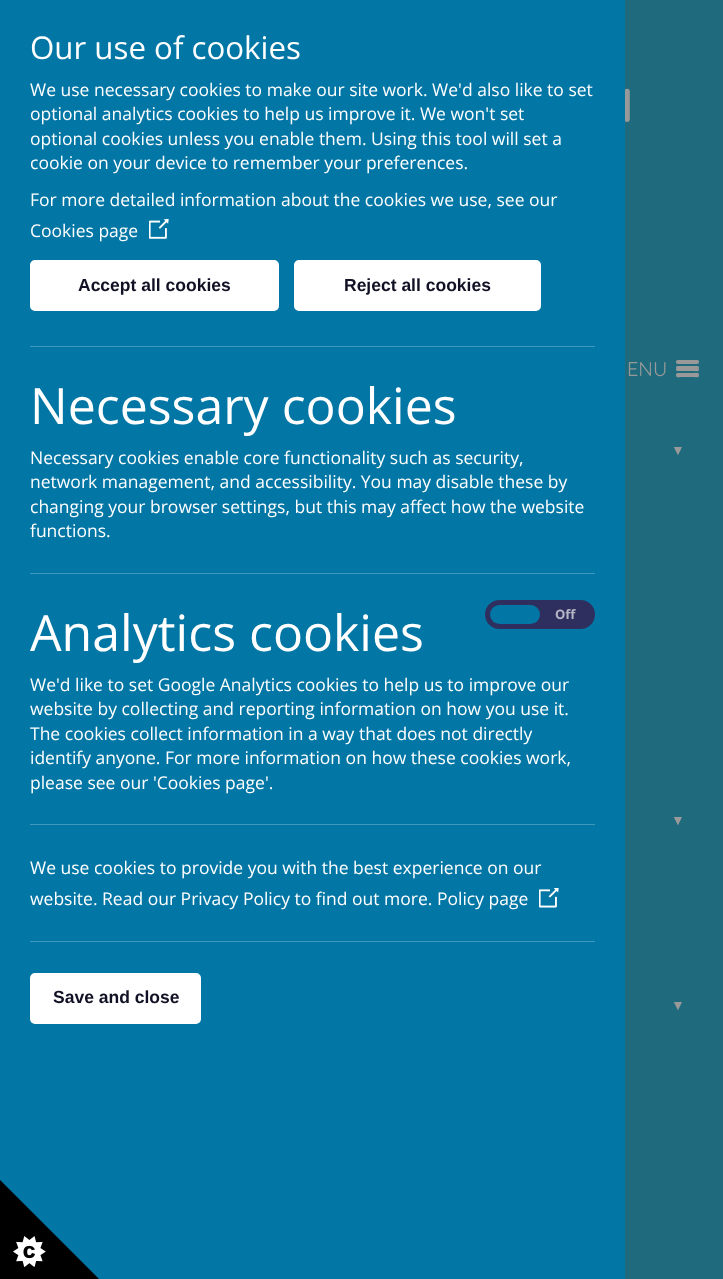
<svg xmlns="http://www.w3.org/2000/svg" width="723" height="1279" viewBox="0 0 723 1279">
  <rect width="100%" height="100%" fill="#1f6b7d"/>
  <path d="M676.5 361.5C674 364.5 680.5 364 681 364H694C694.5 364 701 364.5 698.5 361.5C698.5 362 698 362.5 697.5 362.5H677.5C677 362.5 676.5 362 676.5 361.5Z" fill="#999"/>
  <rect x="676" y="360" width="23" height="3" rx="1.5" fill="#999"/>
  <path d="M676.5 368.5C675.5 369 676 370.5 677 371H694C695 371 698.5 372 699 370C699 369.5 699 368.5 698.5 368.5C697.5 369 677.5 369 676.5 368.5Z" fill="#999"/>
  <rect x="676" y="366" width="23" height="3" rx="1.5" fill="#999"/>
  <path d="M676.5 374.5L676 376C676.5 378 680 377 681 377H694C695 377 698.5 378 699 376L698.5 374.5L697.5 375H677.5Z" fill="#999"/>
  <rect x="676" y="373" width="23" height="3" rx="1.5" fill="#999"/>
  <text x="621" y="122" font-family="Quicksand" font-size="45" font-weight="bold" fill="#999">l</text>
  <path d="M0 0h625v1279H0z" fill="#0276a5"/>
  <image x="0" y="1180" width="99" height="99" href="img/3.png"/>
  <rect x="487.5" y="602.5" width="105" height="24" rx="12" fill="#2f2f5f" stroke="#2f2f5f" stroke-width="5"/>
  <rect x="490" y="605" width="50" height="19" rx="9.5" fill="#0276a5"/>
  <text x="555" y="619" font-family="Open Sans" font-size="13" font-weight="bold" fill="#b6b6c7">Off</text>
  <path d="M30 941h565v1H30z" fill="#4198bc"/>
  <image x="539" y="888" width="20" height="20" href="img/2.png"/>
  <path d="M30 824h565v1H30z" fill="#4198bc"/>
  <g font-family="Open Sans" font-size="17.5" fill="#fff">
    <text x="30" y="905">website. Read our Privacy Policy to find out more. Policy page</text>
    <text x="30" y="874">We use cookies to provide you with the best experience on our</text>
    <text x="30" y="789">please see our 'Cookies page'.</text>
    <text x="30" y="764">identify anyone. For more information on how these cookies work,</text>
    <text x="30" y="740">The cookies collect information in a way that does not directly</text>
    <text x="30" y="715">website by collecting and reporting information on how you use it.</text>
    <text x="30" y="691">We'd like to set Google Analytics cookies to help us to improve our</text>
  </g>
  <text x="30" y="651" font-family="Open Sans" font-size="50" fill="#fff">Analytics cookies</text>
  <path d="M30 573h565v1H30z" fill="#4198bc"/>
  <path d="M30 346h565v1H30z" fill="#4198bc"/>
  <image x="149" y="219" width="20" height="20" href="img/1.png"/>
  <rect x="31.5" y="974.5" width="168" height="48" rx="3.5" fill="#fff" stroke="#fff" stroke-width="3"/>
  <text x="53" y="1003" font-family="Liberation Sans" font-size="17.5" font-weight="bold" fill="#111125">Save and close</text>
  <g font-family="Open Sans" font-size="17.5" fill="#fff">
    <text x="30" y="537">functions.</text>
    <text x="30" y="513">changing your browser settings, but this may affect how the website</text>
    <text x="30" y="488">network management, and accessibility. You may disable these by</text>
    <text x="30" y="464">Necessary cookies enable core functionality such as security,</text>
  </g>
  <text x="30" y="424" font-family="Open Sans" font-size="50" fill="#fff">Necessary cookies</text>
  <rect x="295.5" y="261.5" width="244" height="48" rx="3.5" fill="#fff" stroke="#fff" stroke-width="3"/>
  <text x="344" y="291" font-family="Liberation Sans" font-size="17.5" font-weight="bold" fill="#111125">Reject all cookies</text>
  <rect x="31.5" y="261.5" width="246" height="48" rx="3.5" fill="#fff" stroke="#fff" stroke-width="3"/>
  <text x="78" y="291" font-family="Liberation Sans" font-size="17.5" font-weight="bold" fill="#111125">Accept all cookies</text>
  <g font-family="Open Sans" font-size="17.5" fill="#fff">
    <text x="30" y="237">Cookies page</text>
    <text x="30" y="206">For more detailed information about the cookies we use, see our</text>
    <text x="30" y="169">cookie on your device to remember your preferences.</text>
    <text x="30" y="145">optional cookies unless you enable them. Using this tool will set a</text>
    <text x="30" y="120">optional analytics cookies to help us improve it. We won't set</text>
    <text x="30" y="96">We use necessary cookies to make our site work. We'd also like to set</text>
  </g>
  <text x="30" y="59" font-family="Open Sans" font-size="31.25" fill="#fff">Our use of cookies</text>
  <text x="627" y="376" font-family="Quicksand" font-size="20" fill="#999">ENU</text>
  <g font-family="Liberation Sans" font-size="14" fill="#999">
    <text x="671" y="455">▼</text>
    <text x="671" y="825">▼</text>
    <text x="671" y="1010">▼</text>
  </g>
</svg>
